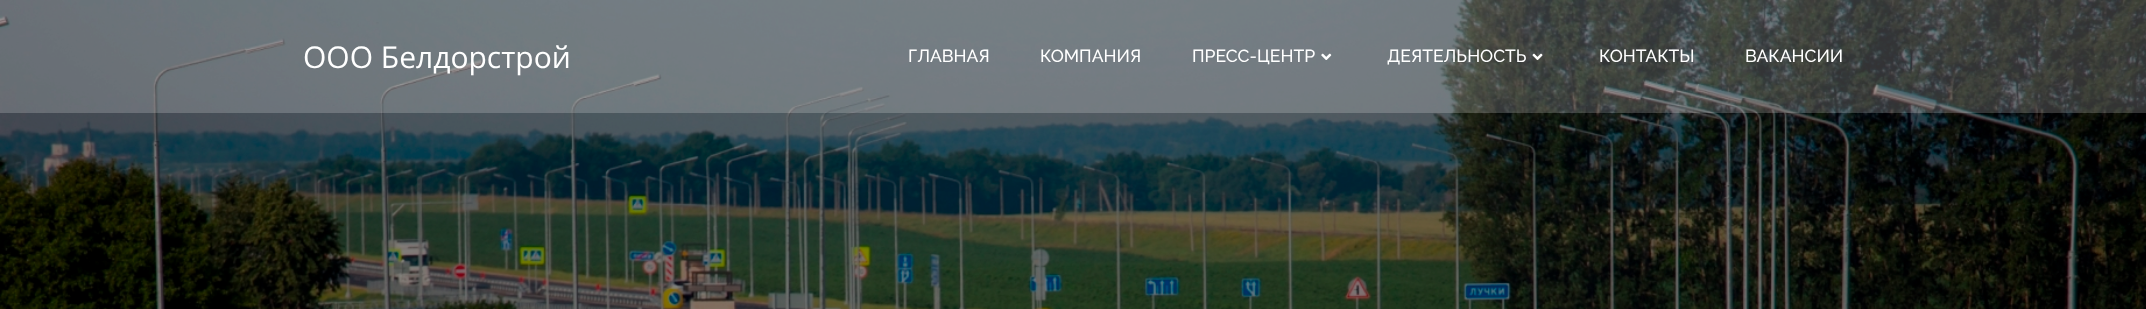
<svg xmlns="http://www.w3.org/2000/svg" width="2146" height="309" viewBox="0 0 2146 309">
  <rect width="100%" height="100%" fill="#fff"/>
  <image x="0" y="0" width="2146" height="309" href="img/1.png"/>
  <path d="M0 0h2146v113H0z" fill="#ffffff33"/>
  <image x="1321" y="53" width="11" height="7" href="img/2.png"/>
  <image x="1532" y="53" width="11" height="8" href="img/3.png"/>
  <text x="303" y="68" font-family="Open Sans" font-size="30" fill="#fff">ООО Белдорстрой</text>
  <g font-family="Raleway" font-size="17.5" font-weight="500" fill="#fff">
    <text x="908" y="62">ГЛАВНАЯ</text>
    <text x="1040" y="62">КОМПАНИЯ</text>
    <text x="1192" y="62">ПРЕСС-ЦЕНТР</text>
    <text x="1387" y="62">ДЕЯТЕЛЬНОСТЬ</text>
    <text x="1599" y="62">КОНТАКТЫ</text>
    <text x="1745" y="62">ВАКАНСИИ</text>
  </g>
</svg>
